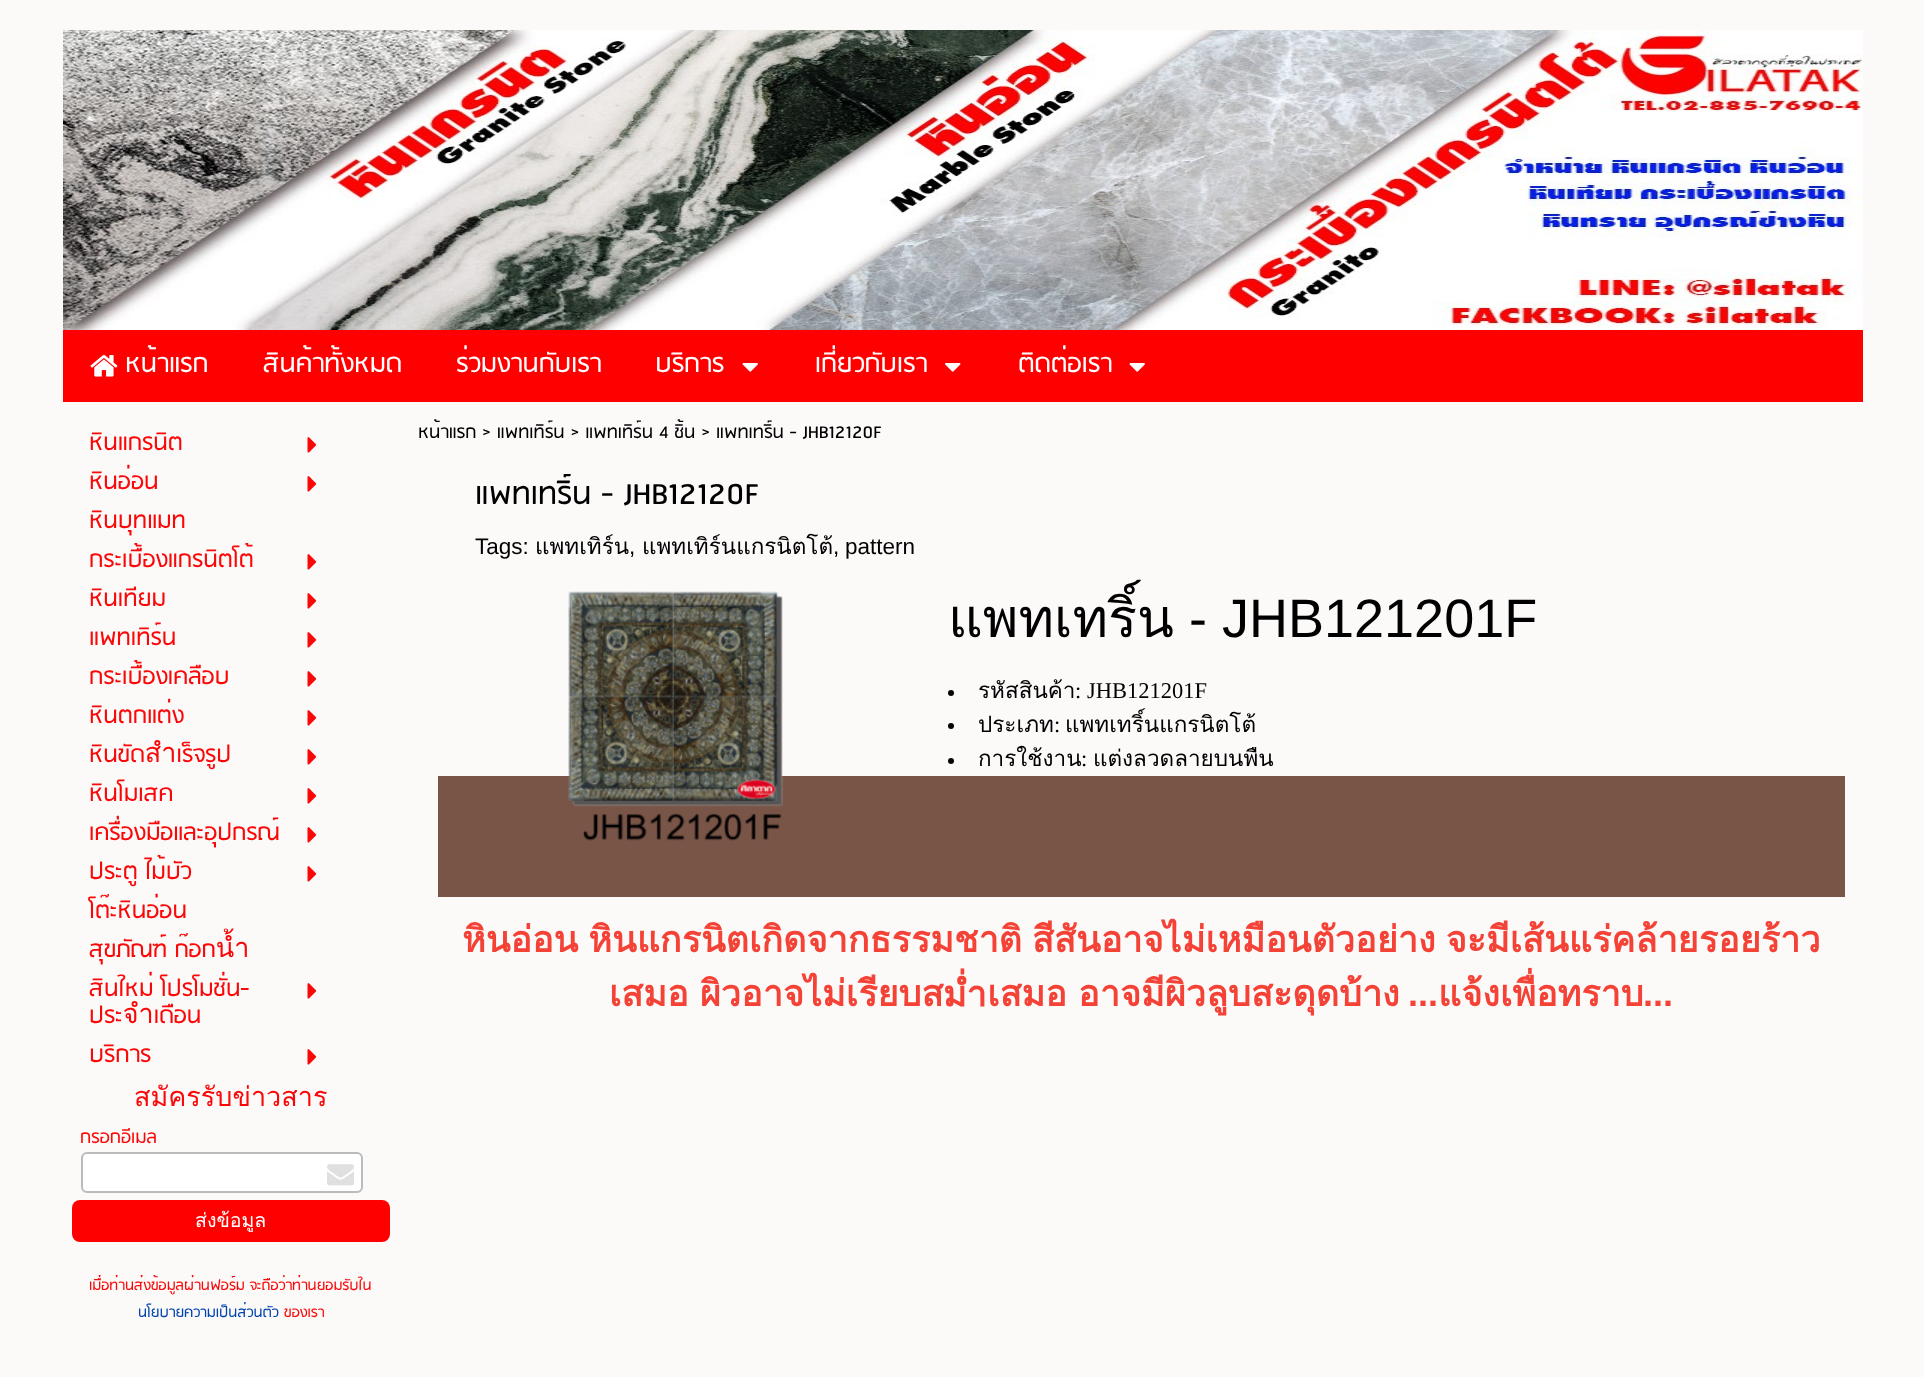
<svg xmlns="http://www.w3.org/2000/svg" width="1924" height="1377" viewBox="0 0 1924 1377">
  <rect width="100%" height="100%" fill="#fcf9f9"/>
  <image x="63" y="30" width="1800" height="300" href="img/1.png"/>
  <path d="M63 330h1800v72H63z" fill="#f00"/>
  <image x="90" y="355" width="28" height="22" href="img/2.png"/>
  <image x="742" y="363" width="16" height="9" href="img/3.png"/>
  <image x="945" y="363" width="16" height="9" href="img/4.png"/>
  <image x="1129" y="363" width="16" height="9" href="img/3.png"/>
  <image x="307" y="437" width="10" height="16" href="img/5.png"/>
  <image x="307" y="476" width="10" height="16" href="img/5.png"/>
  <image x="307" y="554" width="10" height="16" href="img/5.png"/>
  <image x="307" y="593" width="10" height="16" href="img/5.png"/>
  <image x="307" y="632" width="10" height="16" href="img/5.png"/>
  <image x="307" y="671" width="10" height="16" href="img/5.png"/>
  <image x="307" y="710" width="10" height="16" href="img/5.png"/>
  <image x="307" y="749" width="10" height="16" href="img/5.png"/>
  <image x="307" y="788" width="10" height="16" href="img/5.png"/>
  <image x="307" y="827" width="10" height="16" href="img/5.png"/>
  <image x="307" y="866" width="10" height="16" href="img/5.png"/>
  <image x="307" y="983" width="10" height="16" href="img/5.png"/>
  <image x="307" y="1049" width="10" height="16" href="img/5.png"/>
  <rect x="82" y="1153" width="280" height="39" rx="5" fill="#fff" stroke="#bbb" stroke-width="2"/>
  <image x="327" y="1164" width="27" height="22" href="img/6.png"/>
  <rect x="72" y="1200" width="318" height="42" rx="8" fill="#f00"/>
  <circle cx="951" cy="693" r="3" fill="#050505"/>
  <circle cx="951" cy="726" r="3" fill="#050505"/>
  <circle cx="951" cy="761" r="3" fill="#050505"/>
  <path d="M438 776h1407v121H438z" fill="#795548"/>
  <image x="568" y="591" width="215" height="250" href="img/7.png"/>
  <g font-family="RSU" font-size="30" fill="#fff">
    <text x="125" y="372">หน้าแรก</text>
    <text x="263" y="372">สินค้าทั้งหมด</text>
    <text x="456" y="372">ร่วมงานกับเรา</text>
    <text x="655" y="372">บริการ</text>
    <text x="815" y="372">เกี่ยวกับเรา</text>
    <text x="1018" y="372">ติดต่อเรา</text>
  </g>
  <text x="418" y="438" font-family="RSU" font-size="21" fill="#000">หน้าแรก &gt; แพทเทิร์น &gt; แพทเทิร์น 4 ชิ้น &gt; แพทเทริ์น - JHB12120F</text>
  <g font-family="RSU" font-size="27" fill="#fa0808">
    <text x="89" y="450">หินแกรนิต</text>
    <text x="89" y="489">หินอ่อน</text>
    <text x="89" y="528">หินบุทแมท</text>
    <text x="89" y="567">กระเบื้องแกรนิตโต้</text>
    <text x="89" y="606">หินเทียม</text>
    <text x="89" y="645">แพทเทิร์น</text>
    <text x="89" y="684">กระเบื้องเคลือบ</text>
    <text x="89" y="723">หินตกแต่ง</text>
    <text x="89" y="762">หินขัดสำเร็จรูป</text>
    <text x="89" y="801">หินโมเสค</text>
    <text x="89" y="840">เครื่องมือและอุปกรณ์</text>
    <text x="89" y="879">ประตู ไม้บัว</text>
    <text x="89" y="918">โต๊ะหินอ่อน</text>
    <text x="89" y="957">สุขภัณฑ์ ก๊อกน้ำ</text>
    <text x="89" y="996">สินใหม่ โปรโมชั่น-</text>
    <text x="89" y="1023">ประจำเดือน</text>
    <text x="89" y="1062">บริการ</text>
  </g>
  <text x="134" y="1106" font-family="Loma" font-size="27" fill="#fa0808">สมัครรับข่าวสาร</text>
  <text x="80" y="1143" font-family="RSU" font-size="21" fill="#fa0808">กรอกอีเมล</text>
  <text x="195" y="1227" font-family="Loma" font-size="19.5" fill="#fff">ส่งข้อมูล</text>
  <text x="89" y="1290" font-family="RSU" font-size="16.75" fill="#fa0808">เมื่อท่านส่งข้อมูลผ่านฟอร์ม จะถือว่าท่านยอมรับใน</text>
  <text x="138" y="1317" font-family="RSU" font-size="16.75" fill="#0044b0">นโยบายความเป็นส่วนตัว</text>
  <text x="284" y="1317" font-family="RSU" font-size="16.75" fill="#fa0808">ของเรา</text>
  <text x="475" y="504" font-family="RSU" font-size="36" fill="#000">แพทเทริ์น - JHB12120F</text>
  <text x="475" y="554" font-family="Liberation Sans" font-size="22.5" fill="#000">Tags:</text>
  <text x="535" y="554" font-family="Loma" font-size="22.5" fill="#000">แพทเทิร์น</text>
  <text x="629" y="554" font-family="Liberation Sans" font-size="22.5" fill="#000">,</text>
  <text x="642" y="554" font-family="Loma" font-size="22.5" fill="#000">แพทเทิร์นแกรนิตโต้</text>
  <g font-family="Liberation Sans" font-size="22.5" fill="#000">
    <text x="833" y="554">,</text>
    <text x="845" y="554">pattern</text>
  </g>
  <text x="948" y="637" font-family="Loma" font-size="54" fill="#000">แพทเทริ์น</text>
  <text x="1189" y="637" font-family="Liberation Sans" font-size="54" fill="#000">- JHB121201F</text>
  <text x="978" y="698" font-family="Loma" font-size="22.5" fill="#000">รหัสสินค้า</text>
  <text x="1075" y="698" font-family="Liberation Serif" font-size="22.5" fill="#000">: JHB121201F</text>
  <text x="978" y="732" font-family="Loma" font-size="22.5" fill="#000">ประเภท</text>
  <text x="1054" y="732" font-family="Liberation Serif" font-size="22.5" fill="#000">:</text>
  <g font-family="Loma" font-size="22.5" fill="#000">
    <text x="1065" y="732">แพทเทริ์นแกรนิตโต้</text>
    <text x="978" y="766">การใช้งาน</text>
  </g>
  <text x="1081" y="766" font-family="Liberation Serif" font-size="22.5" fill="#000">:</text>
  <text x="1093" y="766" font-family="Loma" font-size="22.5" fill="#000">แต่งลวดลายบนพืน</text>
  <g font-family="Loma" font-size="36" font-weight="bold" fill="#f44336">
    <text x="462" y="952" word-spacing="-2">หินอ่อน หินแกรนิตเกิดจากธรรมชาติ สีสันอาจไม่เหมือนตัวอย่าง จะมีเส้นแร่คล้ายรอยร้าว</text>
    <text x="609" y="1006" word-spacing="-1">เสมอ ผิวอาจไม่เรียบสม่ำเสมอ อาจมีผิวลูบสะดุดบ้าง</text>
  </g>
  <text x="1408" y="1006" font-family="Liberation Sans" font-size="36" font-weight="bold" fill="#f44336">...</text>
  <text x="1438" y="1006" font-family="Loma" font-size="36" font-weight="bold" fill="#f44336">แจ้งเพื่อทราบ</text>
  <text x="1643" y="1006" font-family="Liberation Sans" font-size="36" font-weight="bold" fill="#f44336">...</text>
</svg>
